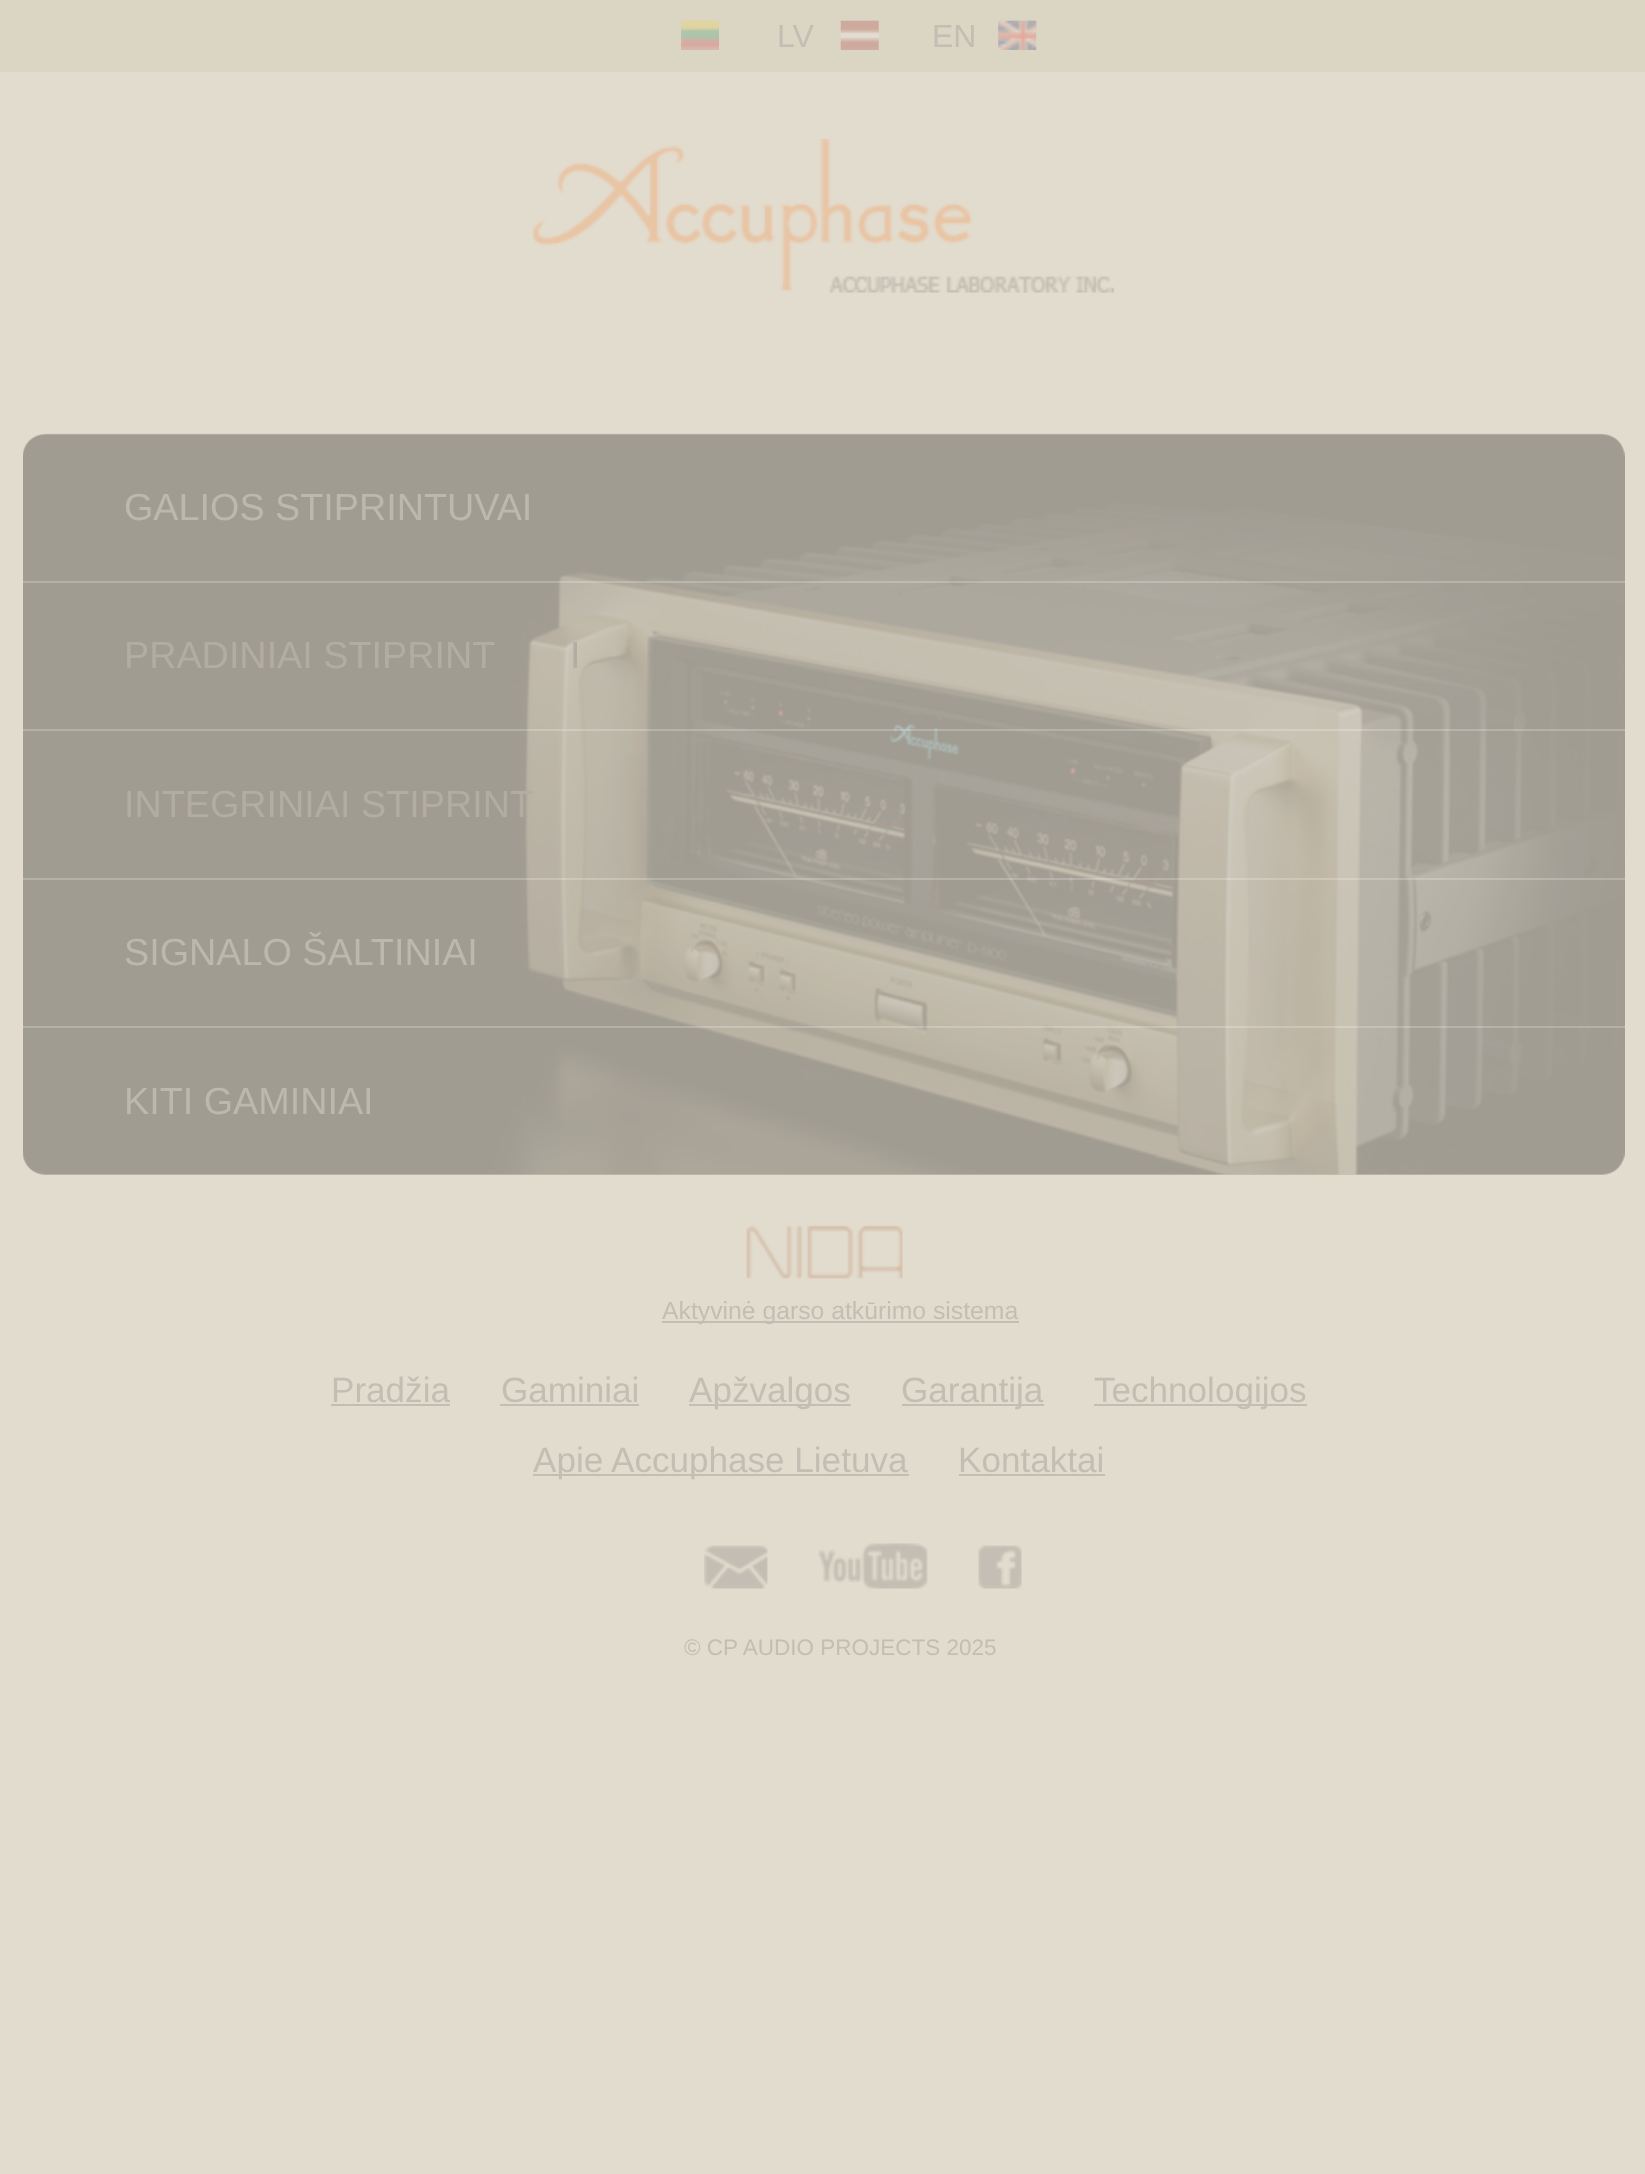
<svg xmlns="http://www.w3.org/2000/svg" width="1645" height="2174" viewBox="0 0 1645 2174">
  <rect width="100%" height="100%" fill="#e2dcce"/>
  <path d="M0 0h1645v72H0z" fill="#dbd5c4"/>
  <image x="681" y="20" width="38" height="30" href="img/1.png"/>
  <image x="840" y="20" width="39" height="30" href="img/2.png"/>
  <image x="998" y="20" width="39" height="30" href="img/3.png"/>
  <image x="532" y="139" width="583" height="154" href="img/4.png"/>
  <image x="23" y="433" width="1602" height="742" href="img/5.png"/>
  <rect x="23" y="434" width="1602" height="741" rx="23" fill="#0000001a"/>
  <path d="M23 581h1602v2H23z" fill="#ffffff36"/>
  <path d="M23 729h1602v2H23z" fill="#ffffff36"/>
  <path d="M23 878h1602v2H23z" fill="#ffffff36"/>
  <path d="M23 1026h1602v2H23z" fill="#ffffff36"/>
  <image x="746" y="1225" width="157" height="54" href="img/6.png"/>
  <path d="M662 1321h357v2H662z" fill="#c3beb3"/>
  <path d="M331 1404h119v2H331z" fill="#c3beb3"/>
  <path d="M500 1404h139v2H500z" fill="#c3beb3"/>
  <path d="M689 1404h162v2H689z" fill="#c3beb3"/>
  <path d="M902 1404h142v2H902z" fill="#c3beb3"/>
  <path d="M1094 1404h213v2H1094z" fill="#c3beb3"/>
  <path d="M533 1474h376v2H533z" fill="#c3beb3"/>
  <path d="M959 1474h146v2H959z" fill="#c3beb3"/>
  <image x="704" y="1545" width="64" height="44" href="img/7.png"/>
  <image x="818" y="1543" width="110" height="46" href="img/8.png"/>
  <image x="978" y="1545" width="44" height="44" href="img/9.png"/>
  <g font-family="Liberation Sans" font-size="32" fill="#c3beb3">
    <text x="777" y="47">LV</text>
    <text x="932" y="47">EN</text>
  </g>
  <text x="124" y="520" font-family="Liberation Sans" font-size="37.75" fill="#bdb8ac">GALIOS STIPRINTUVAI</text>
  <g font-family="Liberation Sans" font-size="37.75" fill="#b2ada2">
    <text x="124" y="668">PRADINIAI STIPRINT</text>
    <text x="570" y="668">I</text>
    <text x="124" y="817">INTEGRINIAI STIPRINT</text>
  </g>
  <g font-family="Liberation Sans" font-size="37.75" fill="#bdb8ac">
    <text x="124" y="965">SIGNALO ŠALTINIAI</text>
    <text x="124" y="1114">KITI GAMINIAI</text>
  </g>
  <text x="662" y="1319" font-family="Liberation Sans" font-size="24.75" fill="#c3beb3">Aktyvinė garso atkūrimo sistema</text>
  <g font-family="Liberation Sans" font-size="35.1" fill="#c3beb3">
    <text x="331" y="1402">Pradžia</text>
    <text x="501" y="1402">Gaminiai</text>
    <text x="689" y="1402">Apžvalgos</text>
    <text x="901" y="1402">Garantija</text>
    <text x="1094" y="1402">Technologijos</text>
    <text x="533" y="1472">Apie Accuphase Lietuva</text>
    <text x="958" y="1472">Kontaktai</text>
  </g>
  <text x="684" y="1655" font-family="Liberation Sans" font-size="22.5" fill="#c3beb3">© CP AUDIO PROJECTS 2025</text>
</svg>
